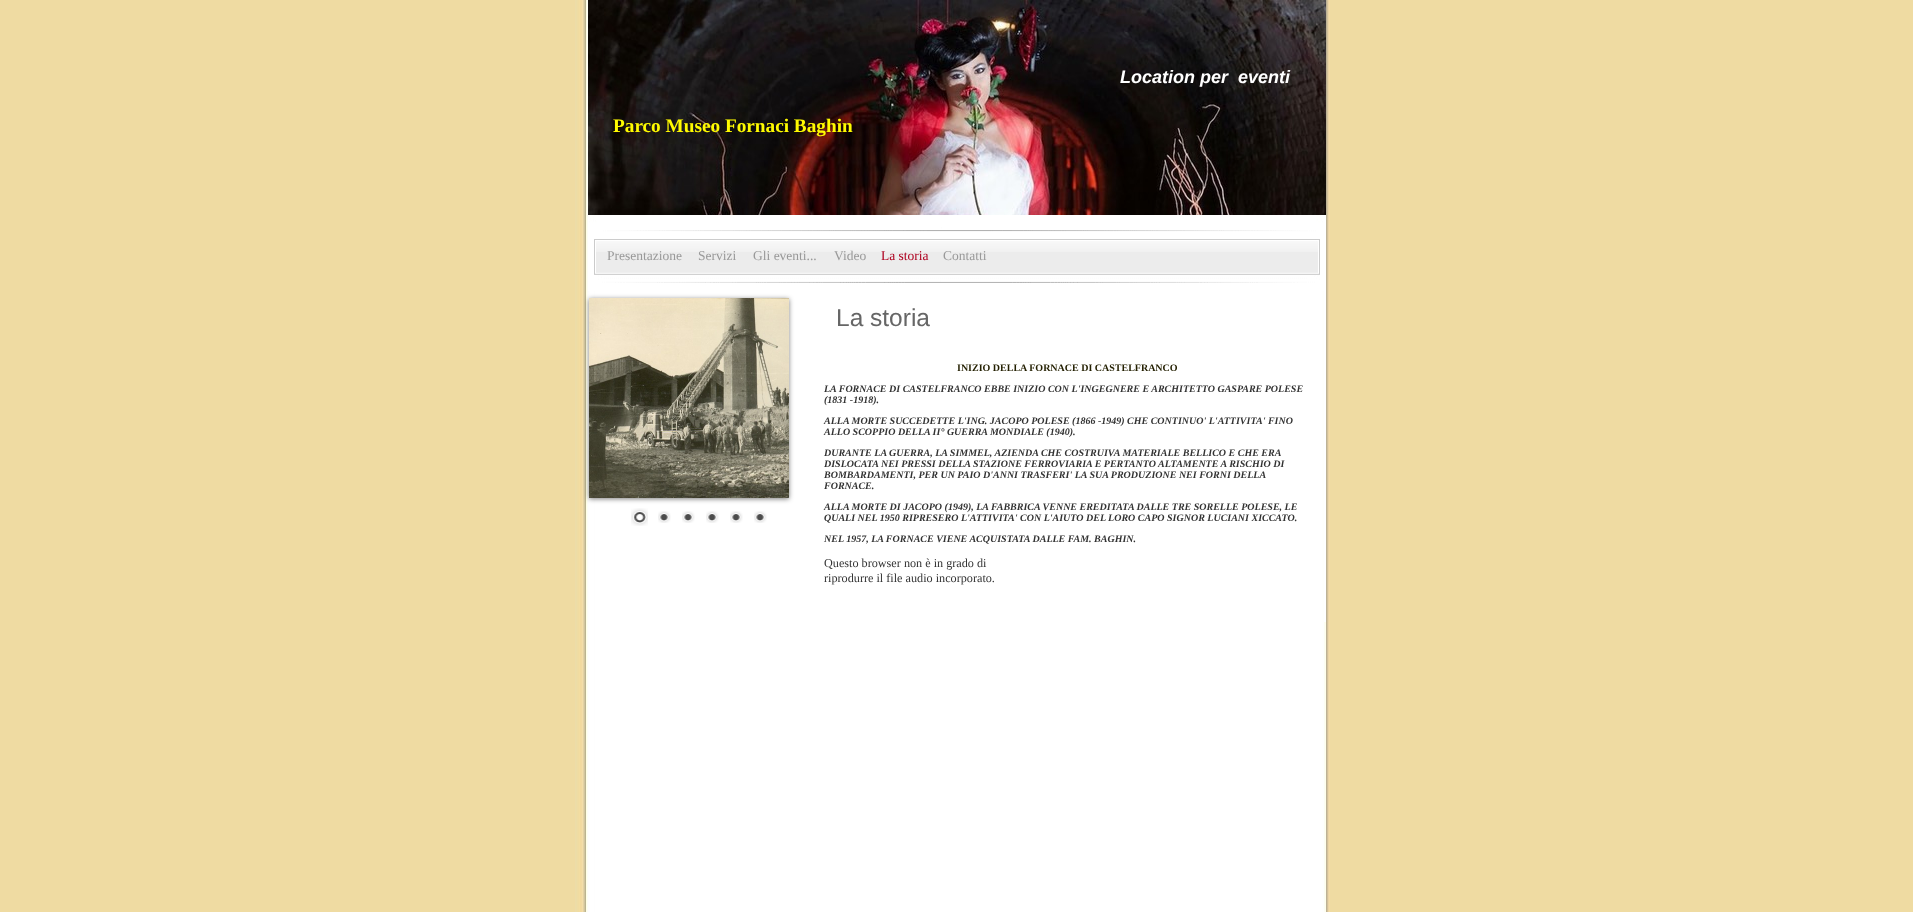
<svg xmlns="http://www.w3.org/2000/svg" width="1913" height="912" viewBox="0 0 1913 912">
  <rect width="100%" height="100%" fill="#efdba2"/>
  <image x="575" y="0" width="755" height="912" href="img/1.png"/>
  <path d="M1324 291h2v331H1324z" fill="#fff"/>
  <image x="588" y="0" width="738" height="215" href="img/2.png"/>
  <image x="588" y="215" width="738" height="76" href="img/3.png"/>
  <image x="594" y="239" width="726" height="44" href="img/4.png"/>
  <image x="595" y="239" width="724" height="13" href="img/5.png"/>
  <path d="M589 299h200v200H589z" fill="#00000080" filter="blur(2.5px)"/>
  <image x="589" y="298" width="200" height="200" href="img/6.png"/>
  <image x="631" y="508" width="17" height="18" href="img/7.png"/>
  <image x="658" y="511" width="13" height="12" href="img/8.png"/>
  <image x="682" y="511" width="13" height="12" href="img/9.png"/>
  <image x="706" y="511" width="13" height="12" href="img/9.png"/>
  <image x="730" y="511" width="13" height="12" href="img/8.png"/>
  <image x="754" y="511" width="13" height="12" href="img/9.png"/>
  <text x="1120" y="83" font-family="Liberation Sans" font-size="18" font-weight="bold" font-style="italic" fill="#fff" xml:space="preserve">Location per  eventi</text>
  <text x="613" y="132" font-family="Liberation Serif" font-size="19.25" font-weight="bold" fill="#fffb00">Parco Museo Fornaci Baghin</text>
  <g font-family="Liberation Serif" font-size="13.5" fill="#999">
    <text x="607" y="260">Presentazione</text>
    <text x="698" y="260">Servizi</text>
    <text x="753" y="260">Gli eventi...</text>
    <text x="834" y="260">Video</text>
  </g>
  <text x="881" y="260" font-family="Liberation Serif" font-size="13.5" fill="#ae001f">La storia</text>
  <text x="943" y="260" font-family="Liberation Serif" font-size="13.5" fill="#999">Contatti</text>
  <text x="836" y="326" font-family="Liberation Sans" font-size="24.5" fill="#666">La storia</text>
  <text x="957" y="371" font-family="Liberation Serif" font-size="10" font-weight="bold" fill="#231f00">INIZIO DELLA FORNACE DI CASTELFRANCO</text>
  <g font-family="Liberation Serif" font-size="10" font-weight="bold" font-style="italic" fill="#333">
    <text x="824" y="392">LA FORNACE DI CASTELFRANCO EBBE INIZIO CON L'INGEGNERE E ARCHITETTO GASPARE POLESE</text>
    <text x="824" y="403">(1831 -1918).</text>
    <text x="824" y="424">ALLA MORTE SUCCEDETTE L'ING. JACOPO POLESE (1866 -1949) CHE CONTINUO' L'ATTIVITA' FINO</text>
    <text x="824" y="435">ALLO SCOPPIO DELLA II° GUERRA MONDIALE (1940).</text>
    <text x="824" y="456">DURANTE LA GUERRA, LA SIMMEL, AZIENDA CHE COSTRUIVA MATERIALE BELLICO E CHE ERA</text>
    <text x="824" y="467">DISLOCATA NEI PRESSI DELLA STAZIONE FERROVIARIA E PERTANTO ALTAMENTE A RISCHIO DI</text>
    <text x="824" y="478">BOMBARDAMENTI, PER UN PAIO D'ANNI TRASFERI' LA SUA PRODUZIONE NEI FORNI DELLA</text>
    <text x="824" y="489">FORNACE.</text>
    <text x="824" y="510">ALLA MORTE DI JACOPO (1949), LA FABBRICA VENNE EREDITATA DALLE TRE SORELLE POLESE, LE</text>
    <text x="824" y="521">QUALI NEL 1950 RIPRESERO L'ATTIVITA' CON L'AIUTO DEL LORO CAPO SIGNOR LUCIANI XICCATO.</text>
    <text x="824" y="542">NEL 1957, LA FORNACE VIENE ACQUISTATA DALLE FAM. BAGHIN.</text>
  </g>
  <g font-family="Liberation Serif" font-size="12.2" fill="#333">
    <text x="824" y="567">Questo browser non è in grado di</text>
    <text x="824" y="582">riprodurre il file audio incorporato.</text>
  </g>
</svg>
